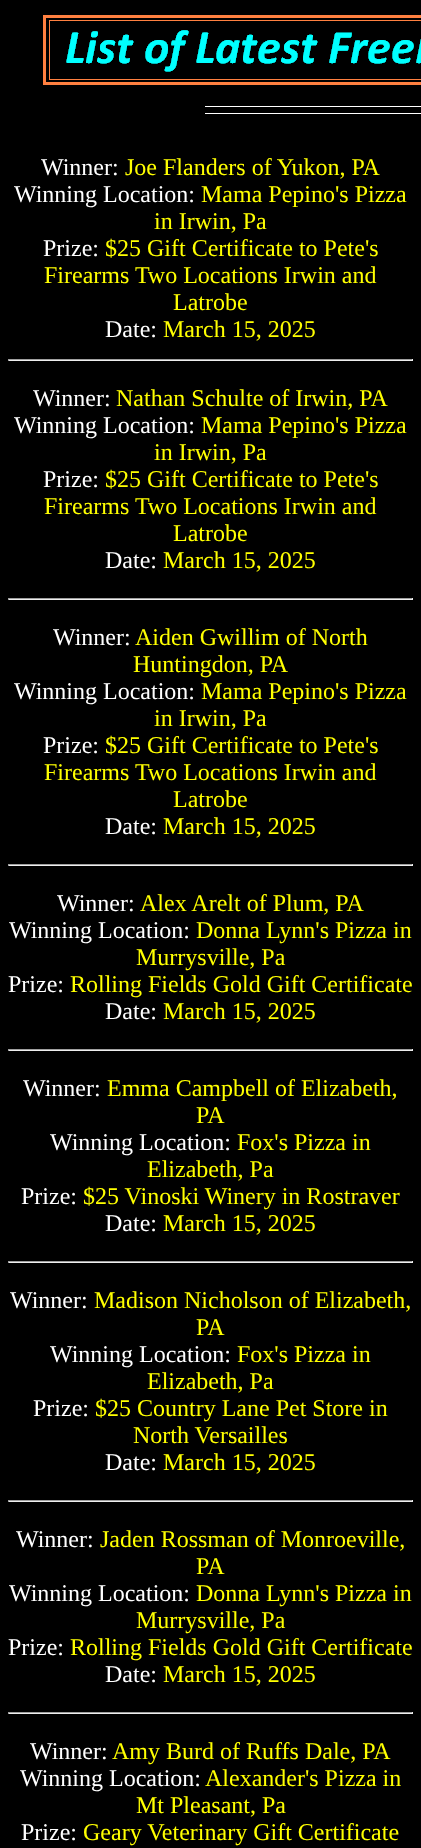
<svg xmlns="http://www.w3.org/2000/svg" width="421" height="1848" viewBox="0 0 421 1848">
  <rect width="100%" height="100%" fill="#000"/>
  <image x="43" y="15" width="378" height="99" href="img/1.png"/>
  <path d="M8 359h405v1H8z" fill="#9f9f9f"/>
  <path d="M412 359h1v2H412z" fill="#eee"/>
  <path d="M8 360h405v1H8z" fill="#eee"/>
  <path d="M8 359h1v2H8z" fill="#9f9f9f"/>
  <path d="M8 598h405v1H8z" fill="#9f9f9f"/>
  <path d="M412 598h1v2H412z" fill="#eee"/>
  <path d="M8 599h405v1H8z" fill="#eee"/>
  <path d="M8 598h1v2H8z" fill="#9f9f9f"/>
  <path d="M8 864h405v1H8z" fill="#9f9f9f"/>
  <path d="M412 864h1v2H412z" fill="#eee"/>
  <path d="M8 865h405v1H8z" fill="#eee"/>
  <path d="M8 864h1v2H8z" fill="#9f9f9f"/>
  <path d="M8 1049h405v1H8z" fill="#9f9f9f"/>
  <path d="M412 1049h1v2H412z" fill="#eee"/>
  <path d="M8 1050h405v1H8z" fill="#eee"/>
  <path d="M8 1049h1v2H8z" fill="#9f9f9f"/>
  <path d="M8 1261h405v1H8z" fill="#9f9f9f"/>
  <path d="M412 1261h1v2H412z" fill="#eee"/>
  <path d="M8 1262h405v1H8z" fill="#eee"/>
  <path d="M8 1261h1v2H8z" fill="#9f9f9f"/>
  <path d="M8 1500h405v1H8z" fill="#9f9f9f"/>
  <path d="M412 1500h1v2H412z" fill="#eee"/>
  <path d="M8 1501h405v1H8z" fill="#eee"/>
  <path d="M8 1500h1v2H8z" fill="#9f9f9f"/>
  <path d="M8 1712h405v1H8z" fill="#9f9f9f"/>
  <path d="M412 1712h1v2H412z" fill="#eee"/>
  <path d="M8 1713h405v1H8z" fill="#eee"/>
  <path d="M8 1712h1v2H8z" fill="#9f9f9f"/>
  <text x="41" y="175" font-family="Liberation Serif" font-size="24" fill="#fff">Winner:</text>
  <text x="125" y="175" font-family="Liberation Serif" font-size="24" fill="#ff0">Joe Flanders of Yukon, PA</text>
  <text x="14" y="202" font-family="Liberation Serif" font-size="24" fill="#fff">Winning Location:</text>
  <g font-family="Liberation Serif" font-size="24" fill="#ff0">
    <text x="201" y="202">Mama Pepino's Pizza</text>
    <text x="154" y="229">in Irwin, Pa</text>
  </g>
  <text x="43" y="256" font-family="Liberation Serif" font-size="24" fill="#fff">Prize:</text>
  <g font-family="Liberation Serif" font-size="24" fill="#ff0">
    <text x="105" y="256">$25 Gift Certificate to Pete's</text>
    <text x="44" y="283">Firearms Two Locations Irwin and</text>
    <text x="173" y="310">Latrobe</text>
  </g>
  <text x="105" y="337" font-family="Liberation Serif" font-size="24" fill="#fff">Date:</text>
  <text x="163" y="337" font-family="Liberation Serif" font-size="24" fill="#ff0">March 15, 2025</text>
  <text x="33" y="406" font-family="Liberation Serif" font-size="24" fill="#fff">Winner:</text>
  <text x="116" y="406" font-family="Liberation Serif" font-size="24" fill="#ff0">Nathan Schulte of Irwin, PA</text>
  <text x="14" y="433" font-family="Liberation Serif" font-size="24" fill="#fff">Winning Location:</text>
  <g font-family="Liberation Serif" font-size="24" fill="#ff0">
    <text x="201" y="433">Mama Pepino's Pizza</text>
    <text x="154" y="460">in Irwin, Pa</text>
  </g>
  <text x="43" y="487" font-family="Liberation Serif" font-size="24" fill="#fff">Prize:</text>
  <g font-family="Liberation Serif" font-size="24" fill="#ff0">
    <text x="105" y="487">$25 Gift Certificate to Pete's</text>
    <text x="44" y="514">Firearms Two Locations Irwin and</text>
    <text x="173" y="541">Latrobe</text>
  </g>
  <text x="105" y="568" font-family="Liberation Serif" font-size="24" fill="#fff">Date:</text>
  <text x="163" y="568" font-family="Liberation Serif" font-size="24" fill="#ff0">March 15, 2025</text>
  <text x="53" y="645" font-family="Liberation Serif" font-size="24" fill="#fff">Winner:</text>
  <g font-family="Liberation Serif" font-size="24" fill="#ff0">
    <text x="135" y="645">Aiden Gwillim of North</text>
    <text x="133" y="672">Huntingdon, PA</text>
  </g>
  <text x="14" y="699" font-family="Liberation Serif" font-size="24" fill="#fff">Winning Location:</text>
  <g font-family="Liberation Serif" font-size="24" fill="#ff0">
    <text x="201" y="699">Mama Pepino's Pizza</text>
    <text x="154" y="726">in Irwin, Pa</text>
  </g>
  <text x="43" y="753" font-family="Liberation Serif" font-size="24" fill="#fff">Prize:</text>
  <g font-family="Liberation Serif" font-size="24" fill="#ff0">
    <text x="105" y="753">$25 Gift Certificate to Pete's</text>
    <text x="44" y="780">Firearms Two Locations Irwin and</text>
    <text x="173" y="807">Latrobe</text>
  </g>
  <text x="105" y="834" font-family="Liberation Serif" font-size="24" fill="#fff">Date:</text>
  <text x="163" y="834" font-family="Liberation Serif" font-size="24" fill="#ff0">March 15, 2025</text>
  <text x="57" y="911" font-family="Liberation Serif" font-size="24" fill="#fff">Winner:</text>
  <text x="140" y="911" font-family="Liberation Serif" font-size="24" fill="#ff0">Alex Arelt of Plum, PA</text>
  <text x="9" y="938" font-family="Liberation Serif" font-size="24" fill="#fff">Winning Location:</text>
  <g font-family="Liberation Serif" font-size="24" fill="#ff0">
    <text x="196" y="938">Donna Lynn's Pizza in</text>
    <text x="136" y="965">Murrysville, Pa</text>
  </g>
  <text x="8" y="992" font-family="Liberation Serif" font-size="24" fill="#fff">Prize:</text>
  <text x="70" y="992" font-family="Liberation Serif" font-size="24" fill="#ff0">Rolling Fields Gold Gift Certificate</text>
  <text x="105" y="1019" font-family="Liberation Serif" font-size="24" fill="#fff">Date:</text>
  <text x="163" y="1019" font-family="Liberation Serif" font-size="24" fill="#ff0">March 15, 2025</text>
  <text x="23" y="1096" font-family="Liberation Serif" font-size="24" fill="#fff">Winner:</text>
  <g font-family="Liberation Serif" font-size="24" fill="#ff0">
    <text x="107" y="1096">Emma Campbell of Elizabeth,</text>
    <text x="196" y="1123">PA</text>
  </g>
  <text x="50" y="1150" font-family="Liberation Serif" font-size="24" fill="#fff">Winning Location:</text>
  <g font-family="Liberation Serif" font-size="24" fill="#ff0">
    <text x="237" y="1150">Fox's Pizza in</text>
    <text x="147" y="1177">Elizabeth, Pa</text>
  </g>
  <text x="21" y="1204" font-family="Liberation Serif" font-size="24" fill="#fff">Prize:</text>
  <text x="83" y="1204" font-family="Liberation Serif" font-size="24" fill="#ff0">$25 Vinoski Winery in Rostraver</text>
  <text x="105" y="1231" font-family="Liberation Serif" font-size="24" fill="#fff">Date:</text>
  <text x="163" y="1231" font-family="Liberation Serif" font-size="24" fill="#ff0">March 15, 2025</text>
  <text x="10" y="1308" font-family="Liberation Serif" font-size="24" fill="#fff">Winner:</text>
  <g font-family="Liberation Serif" font-size="24" fill="#ff0">
    <text x="94" y="1308">Madison Nicholson of Elizabeth,</text>
    <text x="196" y="1335">PA</text>
  </g>
  <text x="50" y="1362" font-family="Liberation Serif" font-size="24" fill="#fff">Winning Location:</text>
  <g font-family="Liberation Serif" font-size="24" fill="#ff0">
    <text x="237" y="1362">Fox's Pizza in</text>
    <text x="147" y="1389">Elizabeth, Pa</text>
  </g>
  <text x="33" y="1416" font-family="Liberation Serif" font-size="24" fill="#fff">Prize:</text>
  <g font-family="Liberation Serif" font-size="24" fill="#ff0">
    <text x="95" y="1416">$25 Country Lane Pet Store in</text>
    <text x="133" y="1443">North Versailles</text>
  </g>
  <text x="105" y="1470" font-family="Liberation Serif" font-size="24" fill="#fff">Date:</text>
  <text x="163" y="1470" font-family="Liberation Serif" font-size="24" fill="#ff0">March 15, 2025</text>
  <text x="16" y="1547" font-family="Liberation Serif" font-size="24" fill="#fff">Winner:</text>
  <g font-family="Liberation Serif" font-size="24" fill="#ff0">
    <text x="100" y="1547">Jaden Rossman of Monroeville,</text>
    <text x="196" y="1574">PA</text>
  </g>
  <text x="9" y="1601" font-family="Liberation Serif" font-size="24" fill="#fff">Winning Location:</text>
  <g font-family="Liberation Serif" font-size="24" fill="#ff0">
    <text x="196" y="1601">Donna Lynn's Pizza in</text>
    <text x="136" y="1628">Murrysville, Pa</text>
  </g>
  <text x="8" y="1655" font-family="Liberation Serif" font-size="24" fill="#fff">Prize:</text>
  <text x="70" y="1655" font-family="Liberation Serif" font-size="24" fill="#ff0">Rolling Fields Gold Gift Certificate</text>
  <text x="105" y="1682" font-family="Liberation Serif" font-size="24" fill="#fff">Date:</text>
  <text x="163" y="1682" font-family="Liberation Serif" font-size="24" fill="#ff0">March 15, 2025</text>
  <text x="30" y="1759" font-family="Liberation Serif" font-size="24" fill="#fff">Winner:</text>
  <text x="112" y="1759" font-family="Liberation Serif" font-size="24" fill="#ff0">Amy Burd of Ruffs Dale, PA</text>
  <text x="20" y="1786" font-family="Liberation Serif" font-size="24" fill="#fff">Winning Location:</text>
  <g font-family="Liberation Serif" font-size="24" fill="#ff0">
    <text x="205" y="1786">Alexander's Pizza in</text>
    <text x="136" y="1813">Mt Pleasant, Pa</text>
  </g>
  <text x="21" y="1840" font-family="Liberation Serif" font-size="24" fill="#fff">Prize:</text>
  <text x="83" y="1840" font-family="Liberation Serif" font-size="24" fill="#ff0">Geary Veterinary Gift Certificate</text>
</svg>
